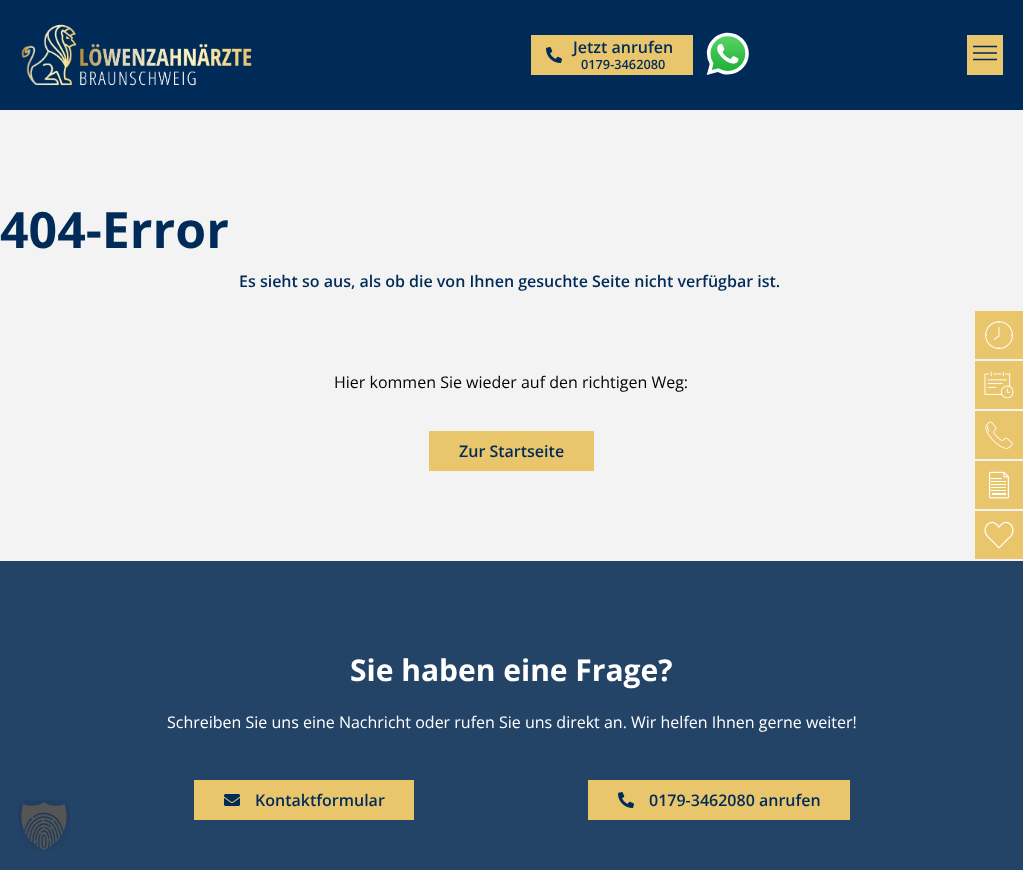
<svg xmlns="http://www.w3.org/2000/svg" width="1023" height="870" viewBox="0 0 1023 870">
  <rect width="100%" height="100%" fill="#002b58"/>
  <image x="21" y="24" width="231" height="62" href="img/1.png"/>
  <path d="M531 35h162v40H531z" fill="#e9c56c"/>
  <image x="546" y="47" width="16" height="16" href="img/2.png"/>
  <image x="706" y="32" width="43" height="43" href="img/3.png"/>
  <path d="M967 35h36v40H967z" fill="#e9c56c"/>
  <path d="M973 46.5H997M973 53H997M973 59.5H997" fill="none" stroke="#002b58" stroke-width="1.6"/>
  <path d="M0 110h1023v451H0z" fill="#f3f3f3"/>
  <path d="M429 431h165v40H429z" fill="#e9c56c"/>
  <path d="M0 561h1023v309H0z" fill="#234367"/>
  <path d="M194 780h220v40H194z" fill="#e9c56c"/>
  <image x="224" y="794" width="16" height="12" href="img/4.png"/>
  <path d="M588 780h262v40H588z" fill="#e9c56c"/>
  <image x="618" y="792" width="16" height="16" href="img/2.png"/>
  <path d="M975 311h48v48H975z" fill="#e9c56c"/>
  <image x="985" y="321" width="28" height="28" href="img/5.png"/>
  <path d="M975 361h48v48H975z" fill="#e9c56c"/>
  <image x="984" y="371" width="30" height="28" href="img/6.png"/>
  <path d="M975 411h48v48H975z" fill="#e9c56c"/>
  <image x="985" y="421" width="28" height="28" href="img/7.png"/>
  <path d="M975 461h48v48H975z" fill="#e9c56c"/>
  <image x="989" y="471" width="20" height="28" href="img/8.png"/>
  <path d="M975 511h48v48H975z" fill="#e9c56c"/>
  <image x="984" y="521" width="30" height="28" href="img/9.png"/>
  <image x="18" y="800" width="52" height="50" href="img/10.png"/>
  <text x="573" y="53" font-family="Open Sans" font-size="16" font-weight="600" fill="#002b58">Jetzt anrufen</text>
  <text x="581" y="69" font-family="Open Sans" font-size="12.75" font-weight="600" fill="#002b58">0179-3462080</text>
  <text x="0" y="248" font-family="Open Sans" font-size="50" font-weight="bold" fill="#002b58">404-Error</text>
  <text x="239" y="287" font-family="Open Sans" font-size="16" font-weight="600" fill="#002b58">Es sieht so aus, als ob die von Ihnen gesuchte Seite nicht verfügbar ist.</text>
  <text x="334" y="388" font-family="Open Sans" font-size="16" fill="#000">Hier kommen Sie wieder auf den richtigen Weg:</text>
  <text x="459" y="457" font-family="Open Sans" font-size="16" font-weight="600" fill="#002b58">Zur Startseite</text>
  <text x="350" y="681" font-family="Open Sans" font-size="30" font-weight="bold" fill="#fff">Sie haben eine Frage?</text>
  <text x="167" y="728" font-family="Open Sans" font-size="16" fill="#fff">Schreiben Sie uns eine Nachricht oder rufen Sie uns direkt an. Wir helfen Ihnen gerne weiter!</text>
  <g font-family="Open Sans" font-size="16" font-weight="600" fill="#002b58">
    <text x="255" y="806">Kontaktformular</text>
    <text x="649" y="806">0179-3462080 anrufen</text>
  </g>
</svg>
